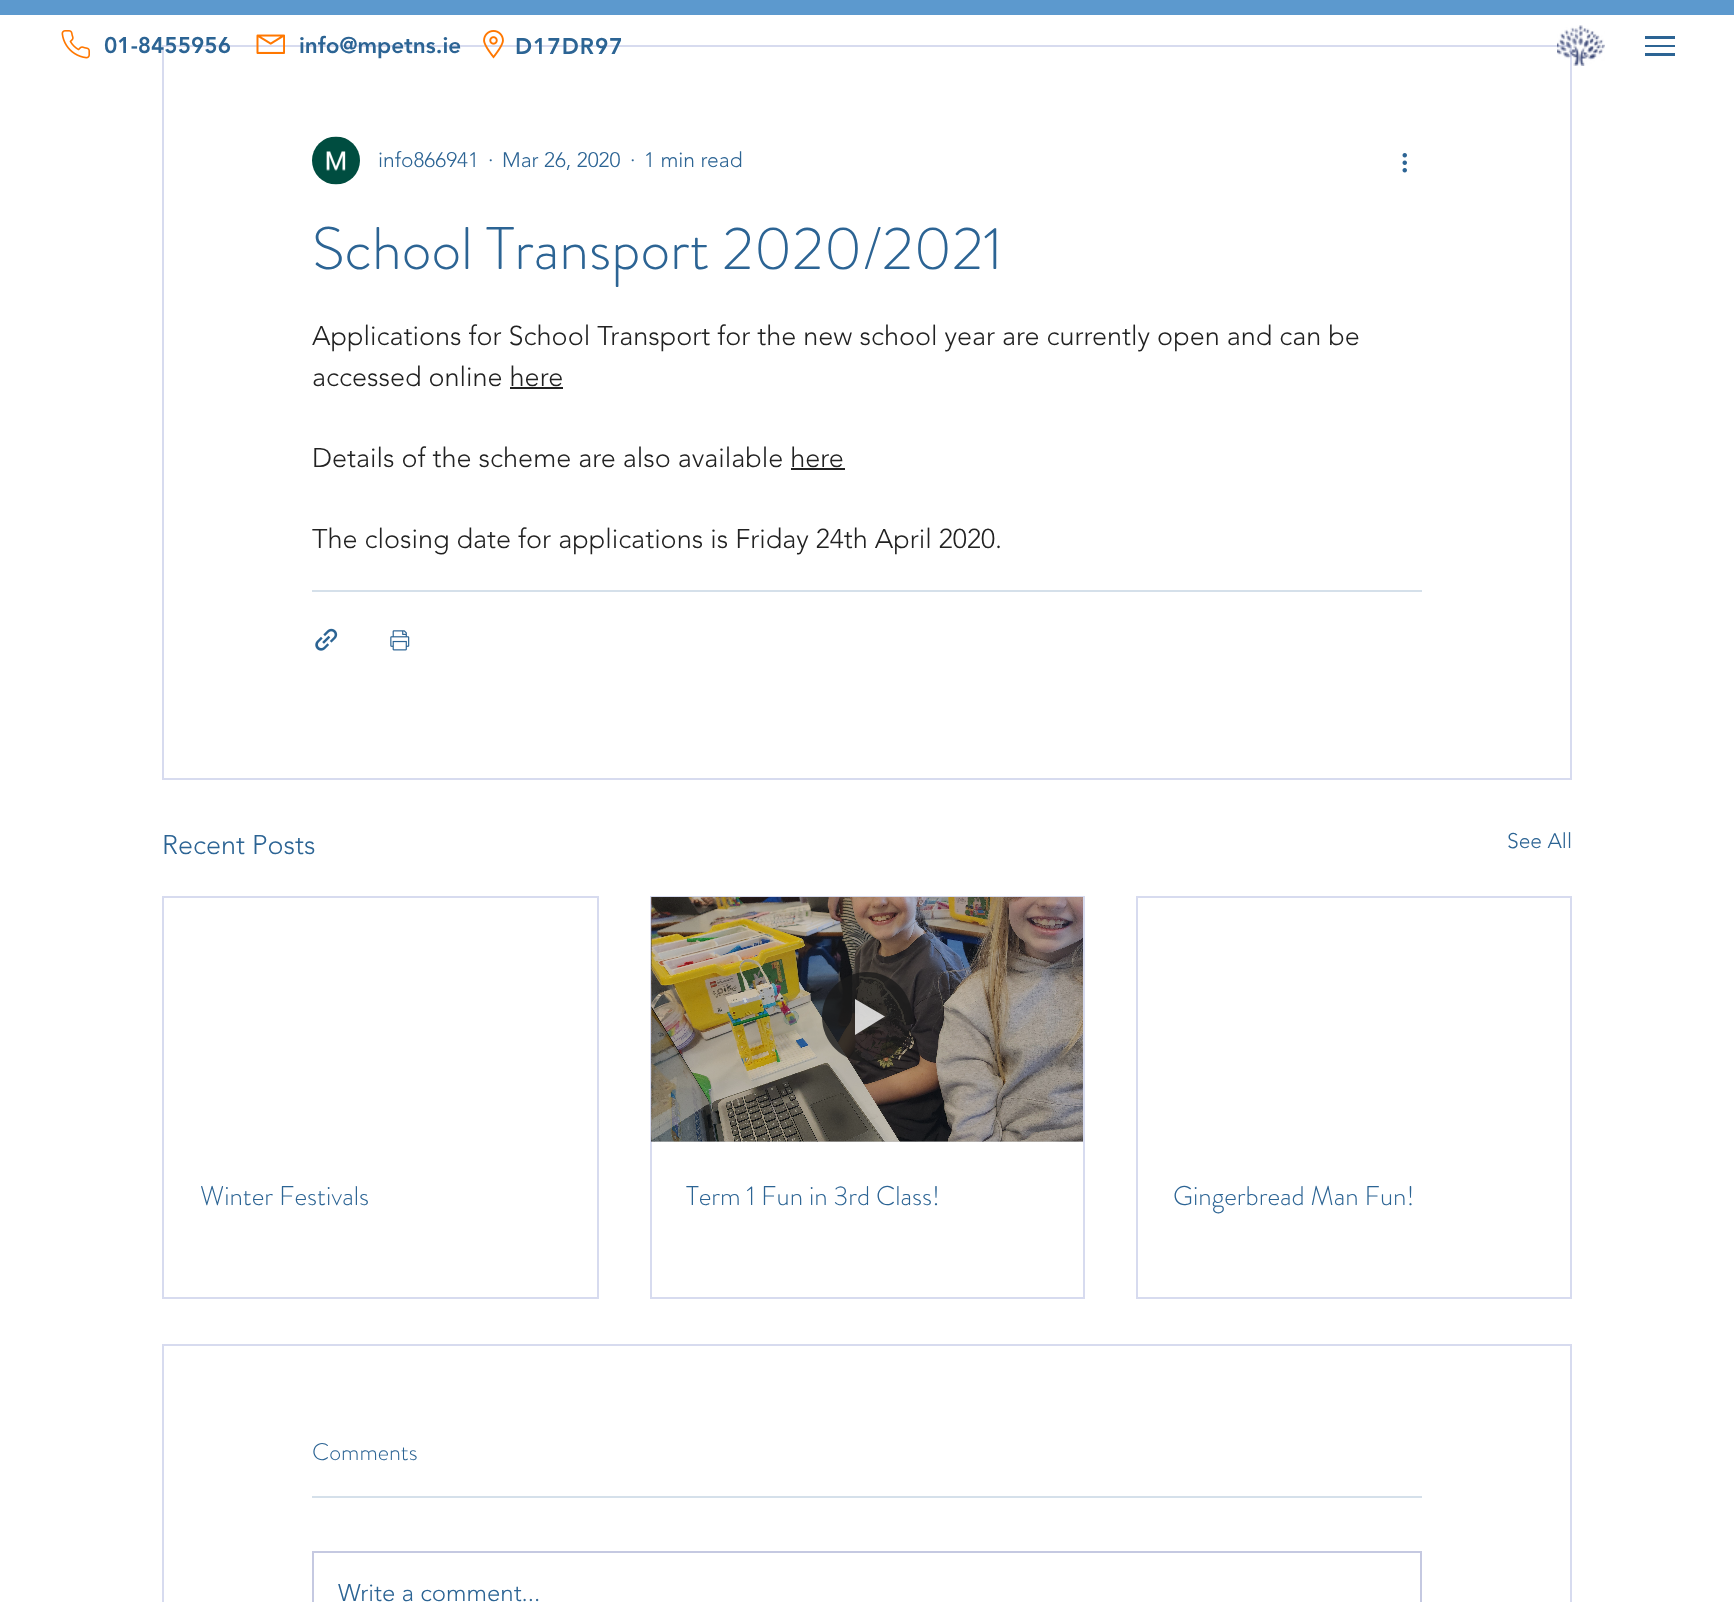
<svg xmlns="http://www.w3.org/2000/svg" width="1734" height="1602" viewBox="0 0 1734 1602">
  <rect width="100%" height="100%" fill="#fff"/>
  <image x="61" y="30" width="29" height="29" href="img/1.png"/>
  <path d="M163 46h1408v733H163z" fill="none" stroke="#d7dbef" stroke-width="2"/>
  <image x="256" y="34" width="29" height="20" href="img/2.png"/>
  <image x="483" y="30" width="21" height="29" href="img/3.png"/>
  <image x="1557" y="25" width="48" height="41" href="img/4.png"/>
  <path d="M1645 53h30v3H1645z" fill="#2c6494"/>
  <path d="M1645 36h30v3H1645z" fill="#2c6494"/>
  <path d="M1645 45h30v2H1645z" fill="#2c6494"/>
  <path d="M0 0h1734v15H0z" fill="#5c99ce"/>
  <image x="312" y="136" width="48" height="49" href="img/5.png"/>
  <image x="1402" y="153" width="5" height="20" href="img/6.png"/>
  <path d="M510 387h53v2H510z" fill="#222"/>
  <path d="M791 468h54v2H791z" fill="#222"/>
  <path d="M312 590h1110v2H312z" fill="#d5e0ea"/>
  <image x="315" y="628" width="23" height="23" href="img/7.png"/>
  <image x="390" y="630" width="20" height="21" href="img/8.png"/>
  <path d="M163 897h435v401H163z" fill="none" stroke="#d7dbef" stroke-width="2"/>
  <path d="M651 897h433v401H651z" fill="none" stroke="#d7dbef" stroke-width="2"/>
  <image x="651" y="897" width="432" height="245" href="img/9.png"/>
  <path d="M651 897h432v245H651z" fill="#00000033"/>
  <circle cx="867" cy="1017" r="45" fill="#1a1a1acc"/>
  <path d="M855 999V1035L885 1016.5Z" fill="#ffffffcc"/>
  <path d="M1137 897h434v401H1137z" fill="none" stroke="#d7dbef" stroke-width="2"/>
  <path d="M163 1345h1408v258H163z" fill="none" stroke="#d7dbef" stroke-width="2"/>
  <path d="M312 1496h1110v2H312z" fill="#d5e0ea"/>
  <path d="M313 1552h1108v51H313z" fill="none" stroke="#c5c9e1" stroke-width="2"/>
  <g font-family="'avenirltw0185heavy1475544'" font-size="22.5" font-weight="900" fill="#2c6494">
    <text x="104" y="53">01-8455956</text>
    <text x="299" y="53">info@mpetns.ie</text>
  </g>
  <text x="515" y="54" font-family="'avenirltw0185heavy1475544'" font-size="22.5" font-weight="900" letter-spacing="1" fill="#2c6494">D17DR97</text>
  <g font-family="'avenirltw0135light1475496'" font-size="21" font-weight="300" fill="#2c6494">
    <text x="378" y="167">info866941</text>
    <text x="488" y="167">·</text>
    <text x="502" y="167">Mar 26, 2020</text>
    <text x="630" y="167">·</text>
    <text x="644" y="167">1 min read</text>
  </g>
  <text x="312" y="269" font-family="'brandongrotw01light'" font-size="60" font-weight="300" fill="#2c6494">School Transport 2020/2021</text>
  <g font-family="'avenirltw0135light1475496'" font-size="27" font-weight="300" fill="#222">
    <text x="312" y="345">Applications for School Transport for the new school year are currently open and can be</text>
    <text x="312" y="386">accessed online here</text>
    <text x="312" y="467">Details of the scheme are also available here</text>
    <text x="312" y="548">The closing date for applications is Friday 24th April 2020.</text>
  </g>
  <text x="162" y="854" font-family="'avenirltw0135light1475496'" font-size="27" font-weight="300" fill="#2c6494">Recent Posts</text>
  <text x="1507" y="848" font-family="'avenirltw0135light1475496'" font-size="21" font-weight="300" fill="#2c6494">See All</text>
  <g font-family="'brandongrotw01light'" font-size="27" font-weight="300" fill="#2c6494">
    <text x="200" y="1205">Winter Festivals</text>
    <text x="686" y="1205">Term 1 Fun in 3rd Class!</text>
    <text x="1173" y="1205">Gingerbread Man Fun!</text>
  </g>
  <text x="312" y="1460" font-family="'brandongrotw01light'" font-size="24" font-weight="300" fill="#2c6494">Comments</text>
  <text x="338" y="1601" font-family="'avenirltw0135light1475496'" font-size="24" font-weight="300" fill="#2c6494">Write a comment...</text>
</svg>
